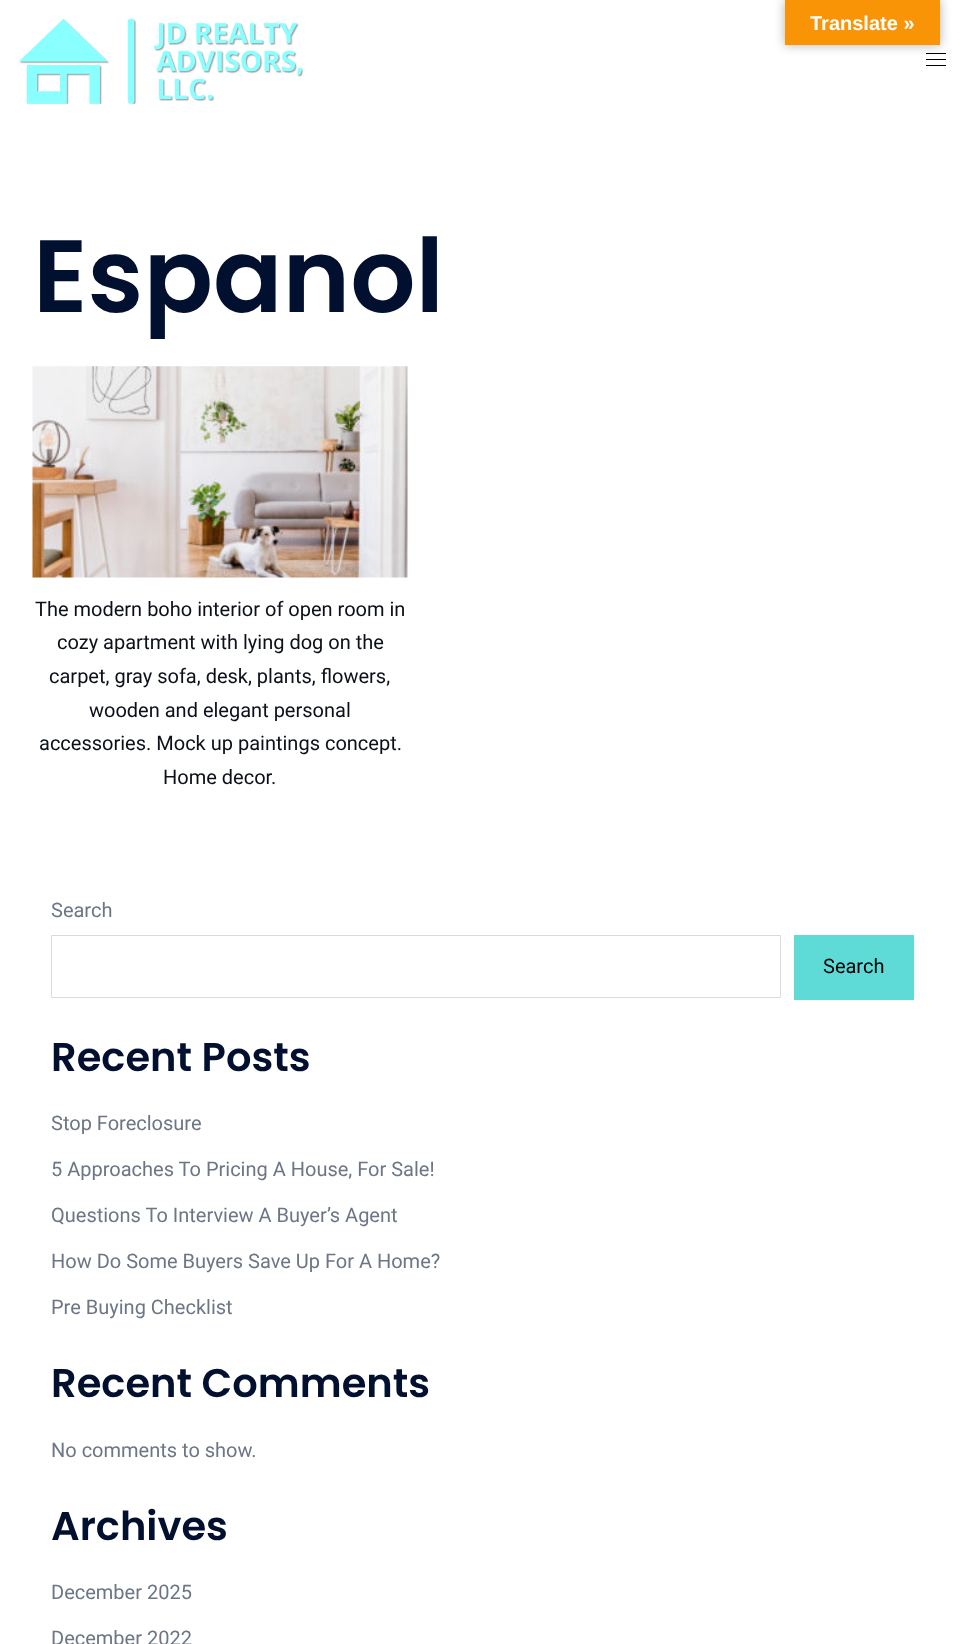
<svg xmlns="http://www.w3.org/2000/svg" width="965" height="1644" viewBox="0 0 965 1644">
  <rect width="100%" height="100%" fill="#fff"/>
  <path d="M926 53h20v1H926z" fill="#000"/>
  <path d="M926 59h20v1H926z" fill="#000"/>
  <path d="M785 0h155v45H785z" fill="#0000004d" filter="blur(5.5px)"/>
  <path d="M785 0h155v45H785z" fill="#f89406"/>
  <image x="19" y="18" width="284" height="86" href="img/1.png"/>
  <path d="M926 65h20v1H926z" fill="#000"/>
  <image x="32" y="366" width="376" height="212" href="img/2.png"/>
  <path d="M51.5 935.5h729v62H51.5z" fill="none" stroke="#dbdbdb"/>
  <path d="M794 935h120v65H794z" fill="#5edbd7"/>
  <text x="810" y="30" font-family="Liberation Sans" font-size="20" font-weight="bold" fill="#fff">Translate »</text>
  <text x="33" y="312" font-family="Poppins" font-size="102.5" font-weight="600" fill="#00102e">Espanol</text>
  <g font-family="Roboto" font-size="20" fill="#0b1019">
    <text x="35" y="616">The modern boho interior of open room in</text>
    <text x="57" y="649">cozy apartment with lying dog on the</text>
    <text x="49" y="683">carpet, gray sofa, desk, plants, flowers,</text>
    <text x="89" y="717">wooden and elegant personal</text>
    <text x="39" y="750">accessories. Mock up paintings concept.</text>
    <text x="163" y="784">Home decor.</text>
  </g>
  <text x="51" y="917" font-family="Roboto" font-size="20" fill="#6d7685">Search</text>
  <text x="823" y="973" font-family="Roboto" font-size="20" fill="#000">Search</text>
  <text x="51" y="1071" font-family="Poppins" font-size="40" font-weight="600" fill="#00102e">Recent Posts</text>
  <g font-family="Roboto" font-size="20" fill="#6d7685">
    <text x="51" y="1130">Stop Foreclosure</text>
    <text x="51" y="1176">5 Approaches To Pricing A House, For Sale!</text>
    <text x="51" y="1222">Questions To Interview A Buyer’s Agent</text>
    <text x="51" y="1268">How Do Some Buyers Save Up For A Home?</text>
    <text x="51" y="1314">Pre Buying Checklist</text>
  </g>
  <text x="51" y="1397" font-family="Poppins" font-size="40" font-weight="600" fill="#00102e">Recent Comments</text>
  <text x="51" y="1457" font-family="Roboto" font-size="20" fill="#6d7685">No comments to show.</text>
  <text x="51" y="1540" font-family="Poppins" font-size="40" font-weight="600" fill="#00102e">Archives</text>
  <g font-family="Roboto" font-size="20" fill="#6d7685">
    <text x="51" y="1599">December 2025</text>
    <text x="51" y="1645">December 2022</text>
  </g>
</svg>
